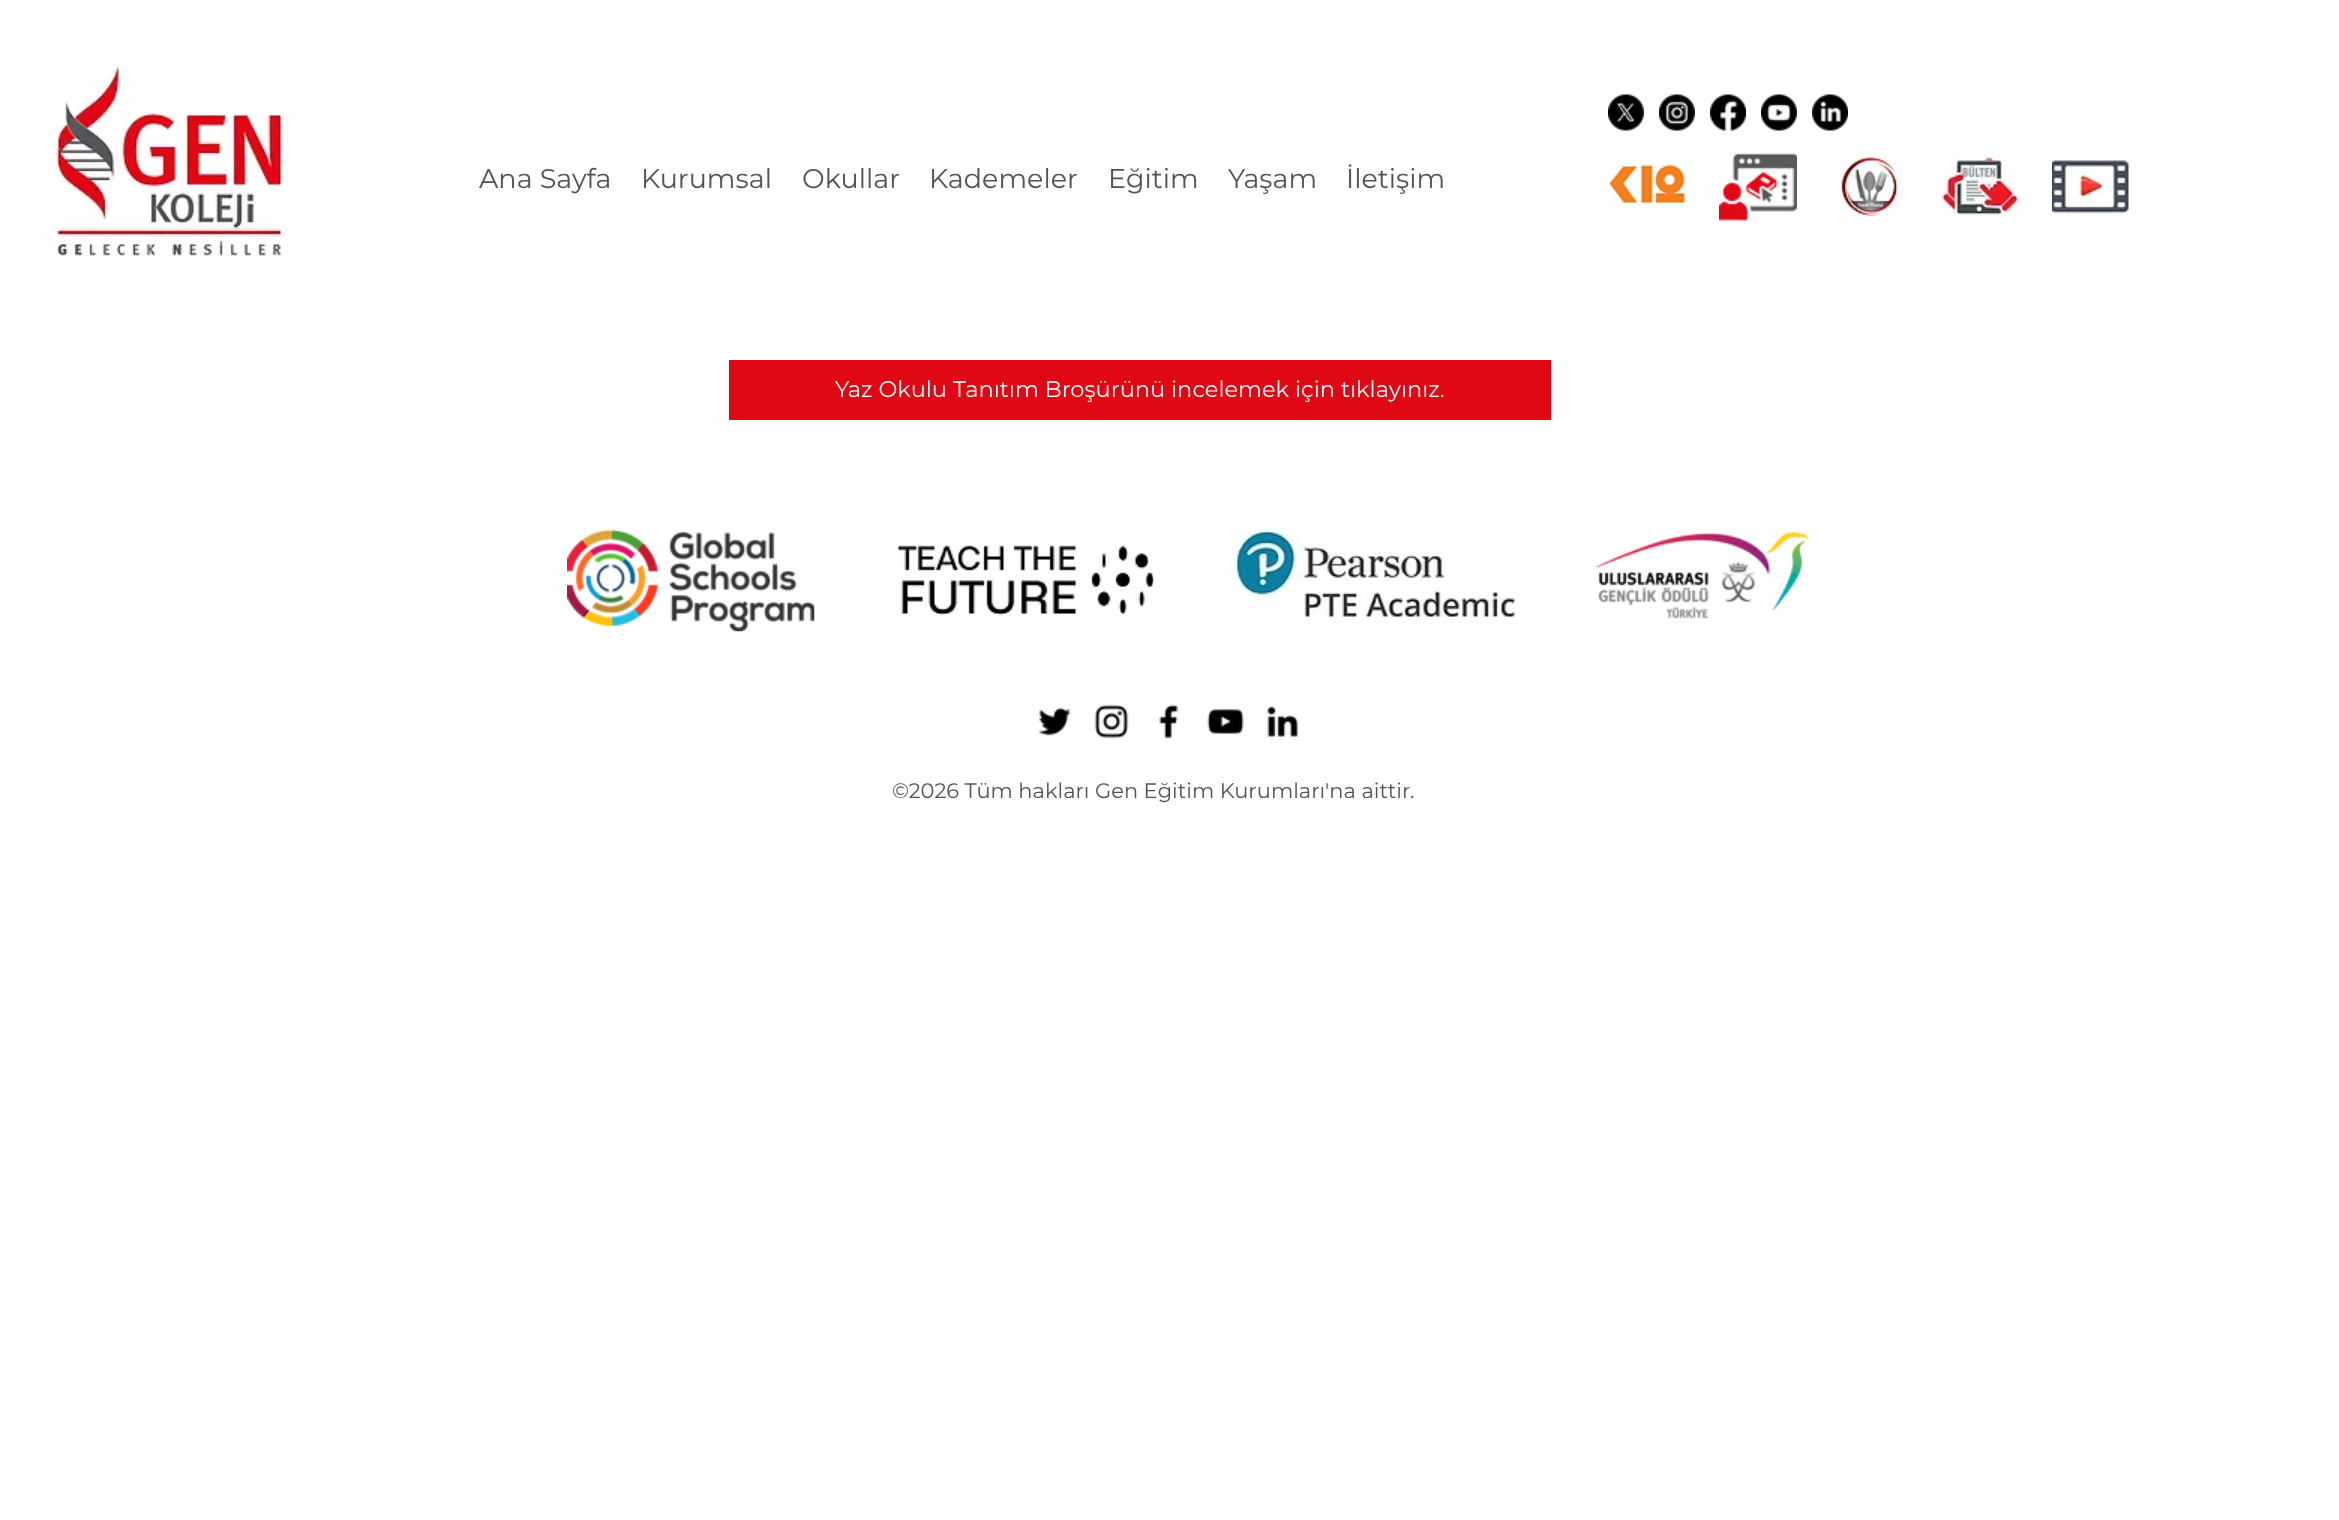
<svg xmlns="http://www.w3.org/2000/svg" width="2339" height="1520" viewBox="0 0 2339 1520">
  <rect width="100%" height="100%" fill="#fff"/>
  <image x="52" y="64" width="232" height="193" href="img/1.png"/>
  <image x="1608" y="94" width="36" height="37" href="img/2.png"/>
  <image x="1659" y="94" width="36" height="37" href="img/3.png"/>
  <image x="1710" y="94" width="36" height="37" href="img/4.png"/>
  <image x="1761" y="94" width="36" height="37" href="img/5.png"/>
  <image x="1812" y="94" width="36" height="37" href="img/6.png"/>
  <image x="1609" y="164" width="76" height="40" href="img/7.png"/>
  <image x="1719" y="152" width="78" height="69" href="img/8.png"/>
  <image x="1841" y="157" width="57" height="60" href="img/9.png"/>
  <image x="1941" y="147" width="78" height="73" href="img/10.png"/>
  <image x="2052" y="159" width="78" height="55" href="img/11.png"/>
  <path d="M729 360h822v60H729z" fill="#e00814"/>
  <image x="567" y="529" width="248" height="103" href="img/12.png"/>
  <image x="894" y="545" width="260" height="73" href="img/13.png"/>
  <image x="1229" y="526" width="288" height="91" href="img/14.png"/>
  <image x="1596" y="531" width="214" height="88" href="img/15.png"/>
  <image x="1038" y="707" width="33" height="29" href="img/16.png"/>
  <image x="1094" y="704" width="35" height="35" href="img/17.png"/>
  <image x="1159" y="704" width="19" height="35" href="img/18.png"/>
  <image x="1207" y="709" width="37" height="25" href="img/19.png"/>
  <image x="1267" y="706" width="31" height="31" href="img/20.png"/>
  <g font-family="Montserrat" font-size="27" fill="#535256">
    <text x="479" y="188">Ana Sayfa</text>
    <text x="641" y="188">Kurumsal</text>
    <text x="802" y="188">Okullar</text>
    <text x="929" y="188">Kademeler</text>
    <text x="1108" y="188">Eğitim</text>
    <text x="1228" y="188">Yaşam</text>
    <text x="1346" y="188">İletişim</text>
  </g>
  <text x="835" y="397" font-family="Montserrat" font-size="22.5" fill="#fff">Yaz Okulu Tanıtım Broşürünü incelemek için tıklayınız.</text>
  <text x="892" y="798" font-family="Montserrat" font-size="21" fill="#535256">©2026 Tüm hakları Gen Eğitim Kurumları'na aittir.</text>
</svg>
